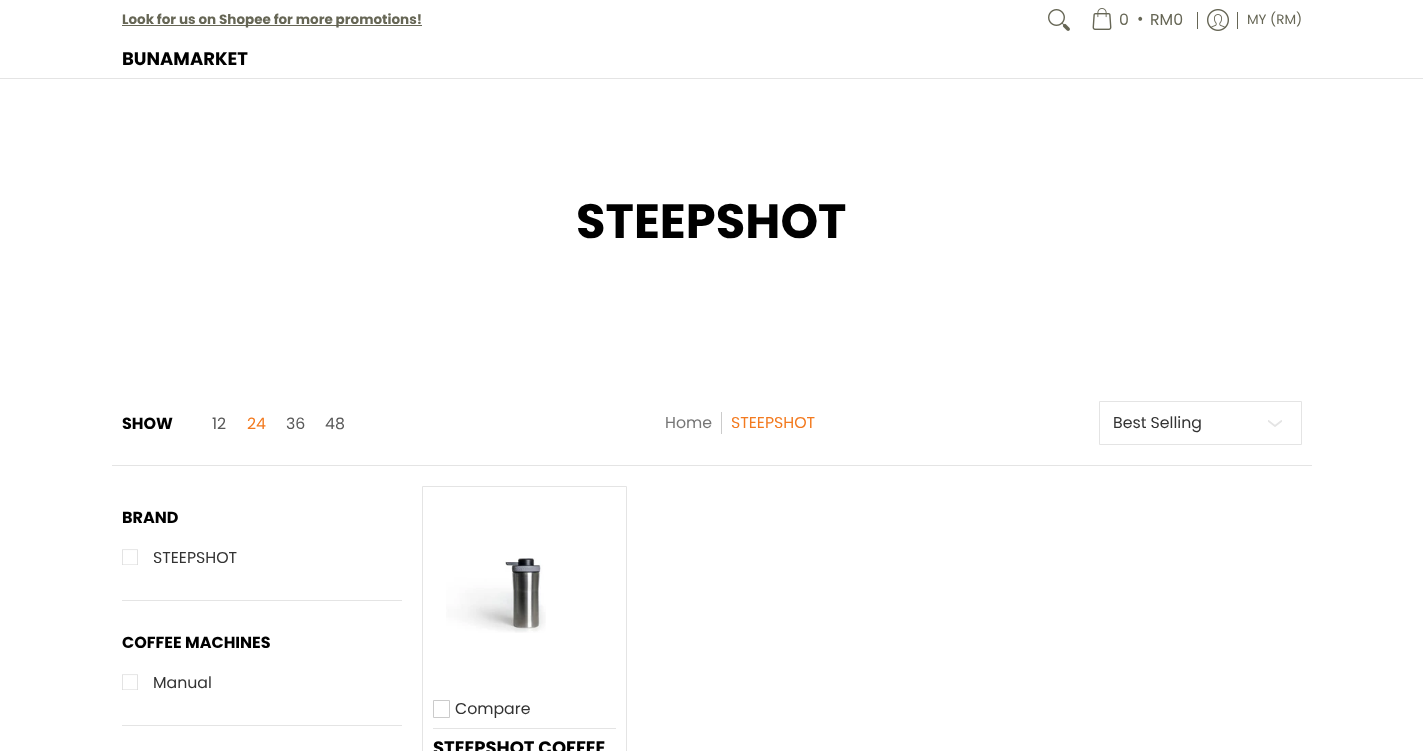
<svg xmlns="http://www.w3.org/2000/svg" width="1423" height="751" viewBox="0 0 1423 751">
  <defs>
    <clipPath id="clip1"><path d="M1268 416h14v14H1268z"/></clipPath>
  </defs>
  <rect width="100%" height="100%" fill="#fff"/>
  <path d="M122 25h300v1H122z" fill="#665"/>
  <image x="1048" y="9" width="22" height="22" href="img/1.png"/>
  <image x="1092" y="8" width="20" height="22" href="img/2.png"/>
  <path d="M1197 12h1v17H1197z" fill="#665"/>
  <image x="1207" y="9" width="22" height="22" href="img/3.png"/>
  <path d="M1237 12h1v17H1237z" fill="#665"/>
  <path d="M0 78h1423v1H0z" fill="#e4e4e4"/>
  <path d="M112 465h1200v1H112z" fill="#e4e4e4"/>
  <path d="M721 412h1v22H721z" fill="#cbcbcb"/>
  <path d="M1099.5 401.5h202v43H1099.5z" fill="none" stroke="#e4e4e4"/>
  <g clip-path="url(#clip1)">
    <path d="M1268.5 421L1275 426L1281.5 421" fill="none" stroke="#e4e4e4" stroke-width="1.8" stroke-linecap="round" stroke-linejoin="round"/>
  </g>
  <path d="M122 600h280v1H122z" fill="#e4e4e4"/>
  <image x="122" y="549" width="16" height="16" href="img/4.png"/>
  <path d="M122 725h280v1H122z" fill="#e4e4e4"/>
  <image x="122" y="674" width="16" height="16" href="img/4.png"/>
  <path d="M422.5 486.5h204v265H422.5z" fill="none" stroke="#e4e4e4"/>
  <image x="446" y="558" width="100" height="75" href="img/5.png"/>
  <path d="M433 728h183v1H433z" fill="#e4e4e4"/>
  <path d="M433.5 700.5h16v17H433.5z" fill="none" stroke="#cbcbcb"/>
  <text x="122" y="24" font-family="Poppins" font-size="13.5" font-weight="bold" fill="#665">Look for us on Shopee for more promotions!</text>
  <g font-family="Poppins" font-size="15.75" fill="#665">
    <text x="1119" y="25">0</text>
    <text x="1137" y="24">•</text>
    <text x="1150" y="25">RM0</text>
  </g>
  <text x="1247" y="24" font-family="Poppins" font-size="13.5" fill="#665">MY (RM)</text>
  <text x="122" y="65" font-family="Poppins" font-size="18" font-weight="bold" fill="#000">BUNAMARKET</text>
  <text x="576" y="238" font-family="Poppins" font-size="48" font-weight="bold" fill="#000">STEEPSHOT</text>
  <text x="122" y="429" font-family="Poppins" font-size="16" font-weight="bold" fill="#000">SHOW</text>
  <text x="212" y="429" font-family="Poppins" font-size="15.75" fill="#595959">12</text>
  <text x="247" y="429" font-family="Poppins" font-size="15.75" fill="#f37a1f">24</text>
  <g font-family="Poppins" font-size="15.75" fill="#595959">
    <text x="286" y="429">36</text>
    <text x="325" y="429">48</text>
  </g>
  <text x="665" y="428" font-family="Poppins" font-size="15.75" fill="#767676">Home</text>
  <text x="731" y="428" font-family="Poppins" font-size="15.75" fill="#f37a1f">STEEPSHOT</text>
  <text x="1113" y="428" font-family="Poppins" font-size="15.75" fill="#333">Best Selling</text>
  <text x="122" y="523" font-family="Poppins" font-size="16" font-weight="bold" fill="#000">BRAND</text>
  <text x="153" y="563" font-family="Poppins" font-size="15.75" fill="#333">STEEPSHOT</text>
  <text x="122" y="648" font-family="Poppins" font-size="16" font-weight="bold" fill="#000">COFFEE MACHINES</text>
  <g font-family="Poppins" font-size="15.75" fill="#333">
    <text x="153" y="688">Manual</text>
    <text x="455" y="714">Compare</text>
  </g>
  <text x="433" y="754" font-family="Poppins" font-size="18" font-weight="bold" fill="#000">STEEPSHOT COFFEE</text>
</svg>
